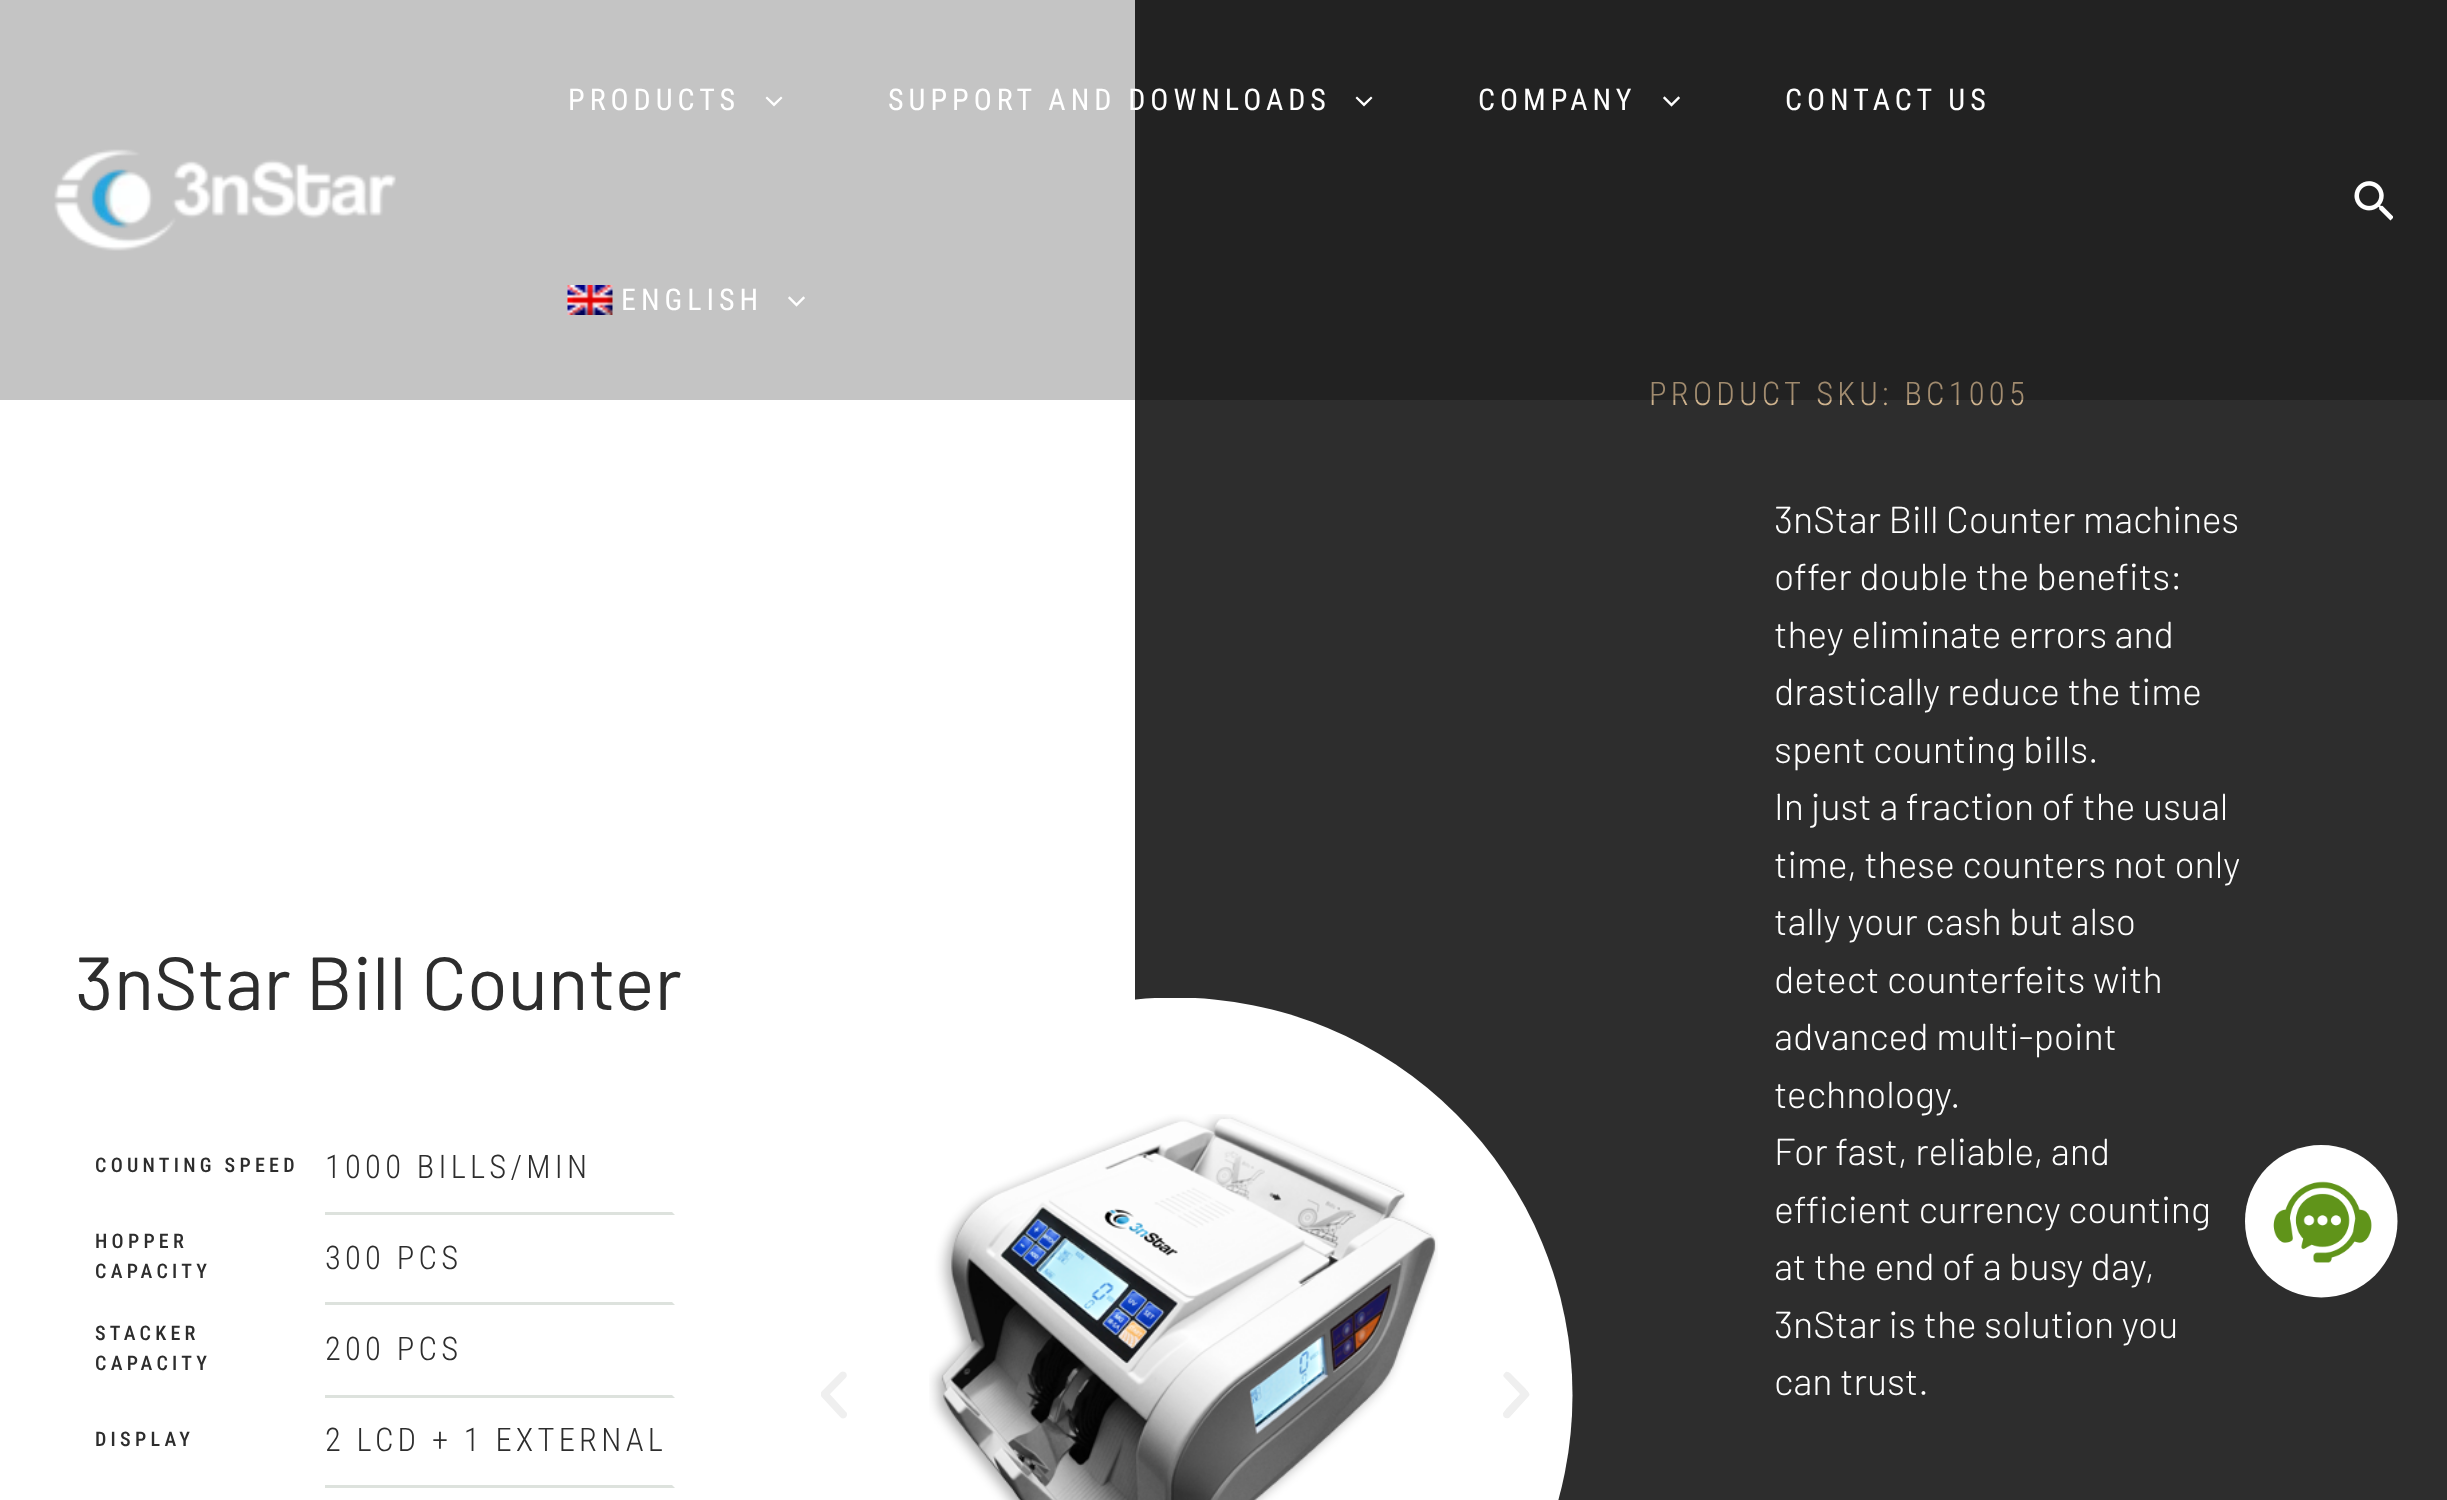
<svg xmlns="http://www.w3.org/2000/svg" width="2447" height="1500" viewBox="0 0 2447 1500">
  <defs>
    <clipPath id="clip1"><path d="M778 998h795v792H778z"/></clipPath>
  </defs>
  <rect width="100%" height="100%" fill="#2d2d2d"/>
  <path d="M0 0h1135v1500H0z" fill="#fff"/>
  <path d="M675 1215H325V1212H672Z" fill="#dde2dd"/>
  <path d="M675 1305H325V1302H672Z" fill="#dde2dd"/>
  <path d="M675 1398H325V1395H672Z" fill="#dde2dd"/>
  <path d="M675 1488H325V1485H672Z" fill="#dde2dd"/>
  <g clip-path="url(#clip1)">
    <circle cx="1175" cy="1395" r="397.5" fill="#fff"/>
  </g>
  <image x="821" y="1371" width="26" height="48" href="img/6.png"/>
  <image x="929" y="1114" width="509" height="386" href="img/7.png"/>
  <path d="M1528 1397C1532 1394 1527 1391 1525 1388L1513 1376C1511 1374 1507 1369 1504 1374C1503 1375 1503 1376 1504 1377L1520 1394C1517 1398 1503 1411 1503 1414C1503 1418 1506 1419 1509 1418Z" fill="#efefef"/>
  <image x="2245" y="1145" width="153" height="153" href="img/8.png"/>
  <text x="75" y="1010" font-family="Barlow" font-size="75" fill="#2d2d2d">3nStar Bill Counter</text>
  <text x="95" y="1172" font-family="Roboto Condensed" font-size="20" font-weight="500" letter-spacing="4.25" fill="#2d2d2d">COUNTING SPEED</text>
  <text x="325" y="1178" font-family="Roboto Condensed" font-size="32.5" font-weight="300" letter-spacing="4.25" fill="#2d2d2d">1000 BILLS/MIN</text>
  <g font-family="Roboto Condensed" font-size="20" font-weight="500" letter-spacing="4.25" fill="#2d2d2d">
    <text x="95" y="1248">HOPPER</text>
    <text x="95" y="1278">CAPACITY</text>
  </g>
  <text x="325" y="1269" font-family="Roboto Condensed" font-size="32.5" font-weight="300" letter-spacing="4.25" fill="#2d2d2d">300 PCS</text>
  <g font-family="Roboto Condensed" font-size="20" font-weight="500" letter-spacing="4.25" fill="#2d2d2d">
    <text x="95" y="1340">STACKER</text>
    <text x="95" y="1370">CAPACITY</text>
  </g>
  <text x="325" y="1360" font-family="Roboto Condensed" font-size="32.5" font-weight="300" letter-spacing="4.25" fill="#2d2d2d">200 PCS</text>
  <text x="95" y="1446" font-family="Roboto Condensed" font-size="20" font-weight="500" letter-spacing="4.25" fill="#2d2d2d">DISPLAY</text>
  <text x="325" y="1451" font-family="Roboto Condensed" font-size="32.5" font-weight="300" letter-spacing="4.25" fill="#2d2d2d">2 LCD + 1 EXTERNAL</text>
  <text x="1649" y="405" font-family="Roboto Condensed" font-size="32.5" font-weight="300" letter-spacing="4.25" fill="#d0b48f">PRODUCT SKU: BC1005</text>
  <path d="M0 0h2447v400H0z" fill="#0000003b"/>
  <image x="2354" y="181" width="39" height="40" href="img/5.png"/>
  <image x="788" y="296" width="17" height="11" href="img/4.png"/>
  <text x="621" y="310" font-family="Roboto Condensed" font-size="30" letter-spacing="5" fill="#fff">ENGLISH</text>
  <image x="567" y="285" width="46" height="30" href="img/3.png"/>
  <text x="1785" y="110" font-family="Roboto Condensed" font-size="30" letter-spacing="5" fill="#fff">CONTACT US</text>
  <image x="1663" y="96" width="17" height="11" href="img/2.png"/>
  <text x="1478" y="110" font-family="Roboto Condensed" font-size="30" letter-spacing="5" fill="#fff">COMPANY</text>
  <path d="M1355.5 98L1364 106.5L1372.5 98L1371 96.5L1364 103L1357 96.5Z" fill="#fff"/>
  <text x="888" y="110" font-family="Roboto Condensed" font-size="30" letter-spacing="5" fill="#fff">SUPPORT AND DOWNLOADS</text>
  <path d="M765.5 98L774 106.5L782.5 98L781 96.5L774 103L767 96.5Z" fill="#fff"/>
  <text x="568" y="110" font-family="Roboto Condensed" font-size="30" letter-spacing="5" fill="#fff">PRODUCTS</text>
  <image x="54" y="149" width="342" height="102" href="img/1.png"/>
  <g font-family="Barlow" font-size="37.5" font-weight="300" fill="#fff">
    <text x="1774" y="533">3nStar Bill Counter machines</text>
    <text x="1774" y="590">offer double the benefits:</text>
    <text x="1774" y="648">they eliminate errors and</text>
    <text x="1774" y="705">drastically reduce the time</text>
    <text x="1774" y="763">spent counting bills.</text>
    <text x="1774" y="820">In just a fraction of the usual</text>
    <text x="1774" y="878">time, these counters not only</text>
    <text x="1774" y="935">tally your cash but also</text>
    <text x="1774" y="993">detect counterfeits with</text>
    <text x="1774" y="1050">advanced multi-point</text>
    <text x="1774" y="1108">technology.</text>
    <text x="1774" y="1165">For fast, reliable, and</text>
    <text x="1774" y="1223">efficient currency counting</text>
    <text x="1774" y="1280">at the end of a busy day,</text>
    <text x="1774" y="1338">3nStar is the solution you</text>
    <text x="1774" y="1395">can trust.</text>
  </g>
</svg>
